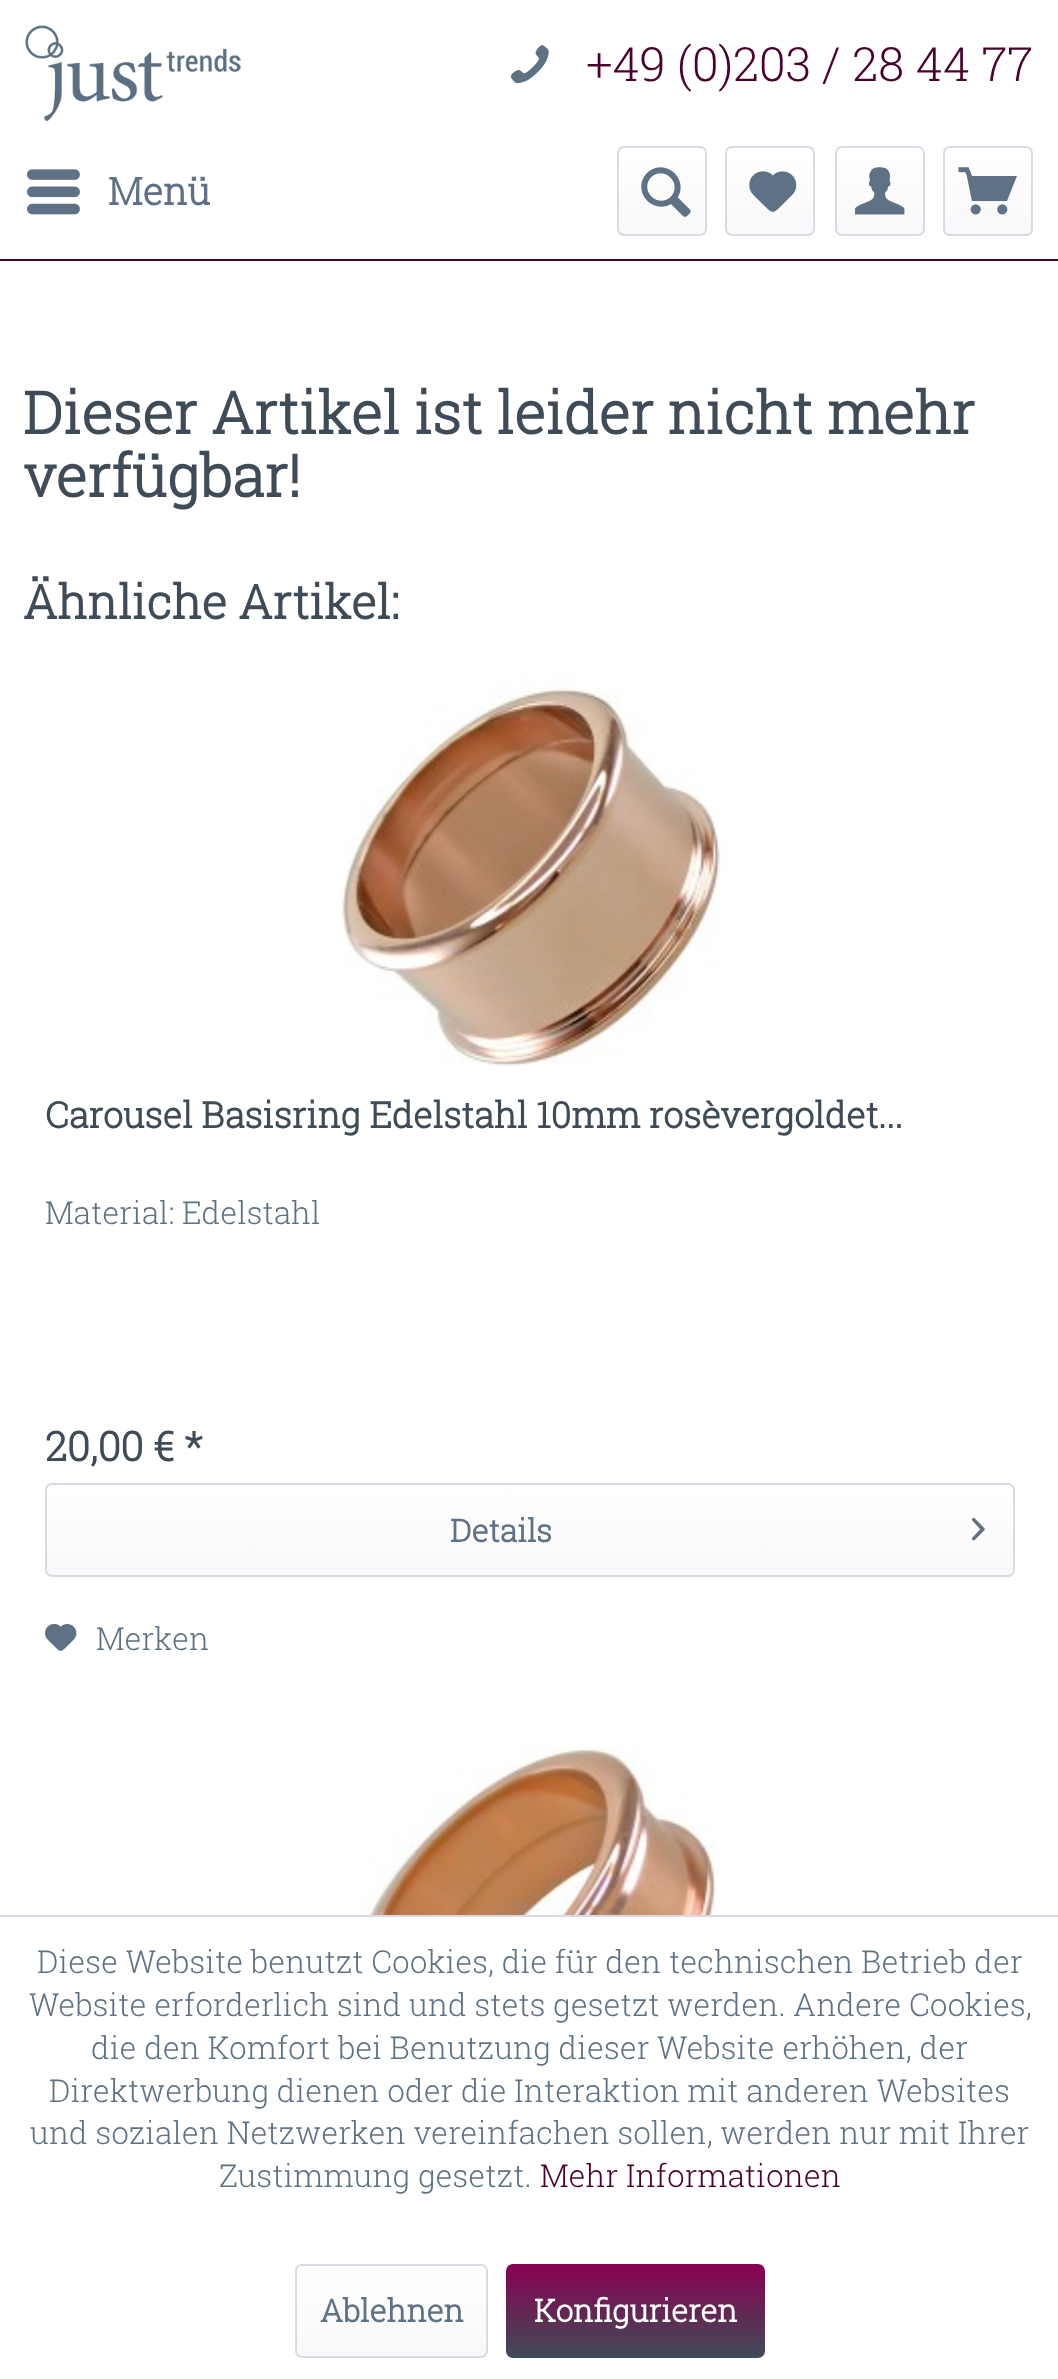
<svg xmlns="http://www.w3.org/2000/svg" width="1058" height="2379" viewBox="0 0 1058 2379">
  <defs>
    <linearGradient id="g1" gradientUnits="userSpaceOnUse" x1="662" y1="149" x2="662" y2="234"><stop offset="0" stop-color="#fff"/><stop offset="1" stop-color="#f8f8fa"/></linearGradient>
    <linearGradient id="g2" gradientUnits="userSpaceOnUse" x1="770" y1="149" x2="770" y2="234"><stop offset="0" stop-color="#fff"/><stop offset="1" stop-color="#f8f8fa"/></linearGradient>
    <linearGradient id="g3" gradientUnits="userSpaceOnUse" x1="880" y1="149" x2="880" y2="234"><stop offset="0" stop-color="#fff"/><stop offset="1" stop-color="#f8f8fa"/></linearGradient>
    <linearGradient id="g4" gradientUnits="userSpaceOnUse" x1="988" y1="149" x2="988" y2="234"><stop offset="0" stop-color="#fff"/><stop offset="1" stop-color="#f8f8fa"/></linearGradient>
    <linearGradient id="g5" gradientUnits="userSpaceOnUse" x1="530" y1="1485" x2="530" y2="1575"><stop offset="0" stop-color="#fff"/><stop offset="1" stop-color="#f8f8fa"/></linearGradient>
    <linearGradient id="g6" gradientUnits="userSpaceOnUse" x1="392" y1="2266" x2="392" y2="2356"><stop offset="0" stop-color="#fff"/><stop offset="1" stop-color="#f8f8fa"/></linearGradient>
    <linearGradient id="g7" gradientUnits="userSpaceOnUse" x1="636" y1="2264" x2="636" y2="2358"><stop offset="0" stop-color="#890051"/><stop offset="1" stop-color="#3f4c58"/></linearGradient>
  </defs>
  <rect width="100%" height="100%" fill="#fff"/>
  <path d="M0 259h1058v2H0z" fill="#4c002d"/>
  <image x="25" y="25" width="216" height="96" href="img/1.png"/>
  <image x="510" y="45" width="39" height="39" href="img/2.png"/>
  <image x="27" y="169" width="53" height="46" href="img/3.png"/>
  <rect x="619" y="149" width="85" height="85" rx="5" fill="url(#g1)"/>
  <rect x="618" y="147" width="88" height="88" rx="6" fill="none" stroke="#dadae5" stroke-width="2"/>
  <image x="641" y="167" width="50" height="50" href="img/4.png"/>
  <rect x="727" y="149" width="85" height="85" rx="5" fill="url(#g2)"/>
  <rect x="726" y="147" width="88" height="88" rx="6" fill="none" stroke="#dadae5" stroke-width="2"/>
  <image x="749" y="171" width="48" height="41" href="img/5.png"/>
  <rect x="837" y="149" width="86" height="85" rx="5" fill="url(#g3)"/>
  <rect x="836" y="147" width="88" height="88" rx="6" fill="none" stroke="#dadae5" stroke-width="2"/>
  <image x="855" y="167" width="50" height="48" href="img/6.png"/>
  <rect x="945" y="149" width="86" height="85" rx="5" fill="url(#g4)"/>
  <rect x="944" y="147" width="88" height="88" rx="6" fill="none" stroke="#dadae5" stroke-width="2"/>
  <image x="958" y="167" width="59" height="48" href="img/7.png"/>
  <image x="340" y="675" width="389" height="392" href="img/8.png"/>
  <rect x="47" y="1485" width="966" height="90" rx="5" fill="url(#g5)"/>
  <rect x="46" y="1484" width="968" height="92" rx="6" fill="none" stroke="#dadae5" stroke-width="2"/>
  <image x="972" y="1517" width="13" height="24" href="img/9.png"/>
  <image x="45" y="1623" width="32" height="28" href="img/10.png"/>
  <image x="350" y="1747" width="367" height="168" href="img/11.png"/>
  <path d="M0 1915h1058v2H0z" fill="#dadae5"/>
  <rect x="297" y="2266" width="189" height="90" rx="5" fill="url(#g6)"/>
  <rect x="296" y="2265" width="191" height="92" rx="6" fill="none" stroke="#dadae5" stroke-width="2"/>
  <rect x="506" y="2264" width="259" height="94" rx="7" fill="url(#g7)"/>
  <text x="586" y="81" font-family="Roboto Slab" font-size="47.25" font-weight="300" fill="#4c002d">+49 (0)203 / 28 44 77</text>
  <text x="108" y="205" font-family="Roboto Slab" font-size="38" font-weight="bold" fill="#5f7285">Menü</text>
  <g font-family="Roboto Slab" font-size="58.5" font-weight="bold" fill="#3f4c58">
    <text x="23" y="434">Dieser Artikel ist leider nicht mehr</text>
    <text x="23" y="497">verfügbar!</text>
  </g>
  <text x="23" y="619" font-family="Roboto Slab" font-size="47.25" font-weight="bold" fill="#3f4c58">Ähnliche Artikel:</text>
  <text x="45" y="1128" font-family="Roboto Slab" font-size="36" font-weight="bold" fill="#3f4c58">Carousel Basisring Edelstahl 10mm rosèvergoldet...</text>
  <text x="45" y="1224" font-family="Roboto Slab" font-size="31.5" font-weight="300" fill="#5f7285">Material: Edelstahl</text>
  <text x="45" y="1461" font-family="Roboto Slab" font-size="40.5" font-weight="bold" fill="#3f4c58">20,00 € *</text>
  <text x="450" y="1542" font-family="Roboto Slab" font-size="31.5" font-weight="bold" fill="#5f7285">Details</text>
  <g font-family="Roboto Slab" font-size="31.5" font-weight="300" fill="#5f7285">
    <text x="96" y="1650">Merken</text>
    <text x="37" y="1973">Diese Website benutzt Cookies, die für den technischen Betrieb der</text>
    <text x="29" y="2016">Website erforderlich sind und stets gesetzt werden. Andere Cookies,</text>
    <text x="91" y="2059">die den Komfort bei Benutzung dieser Website erhöhen, der</text>
    <text x="49" y="2102">Direktwerbung dienen oder die Interaktion mit anderen Websites</text>
    <text x="30" y="2144">und sozialen Netzwerken vereinfachen sollen, werden nur mit Ihrer</text>
    <text x="219" y="2187">Zustimmung gesetzt.</text>
  </g>
  <text x="540" y="2187" font-family="Roboto Slab" font-size="31.5" font-weight="300" fill="#4c002d">Mehr Informationen</text>
  <text x="320" y="2322" font-family="Roboto Slab" font-size="31.5" font-weight="bold" fill="#5f7285">Ablehnen</text>
  <text x="534" y="2322" font-family="Roboto Slab" font-size="31.5" font-weight="bold" fill="#fff">Konfigurieren</text>
</svg>
